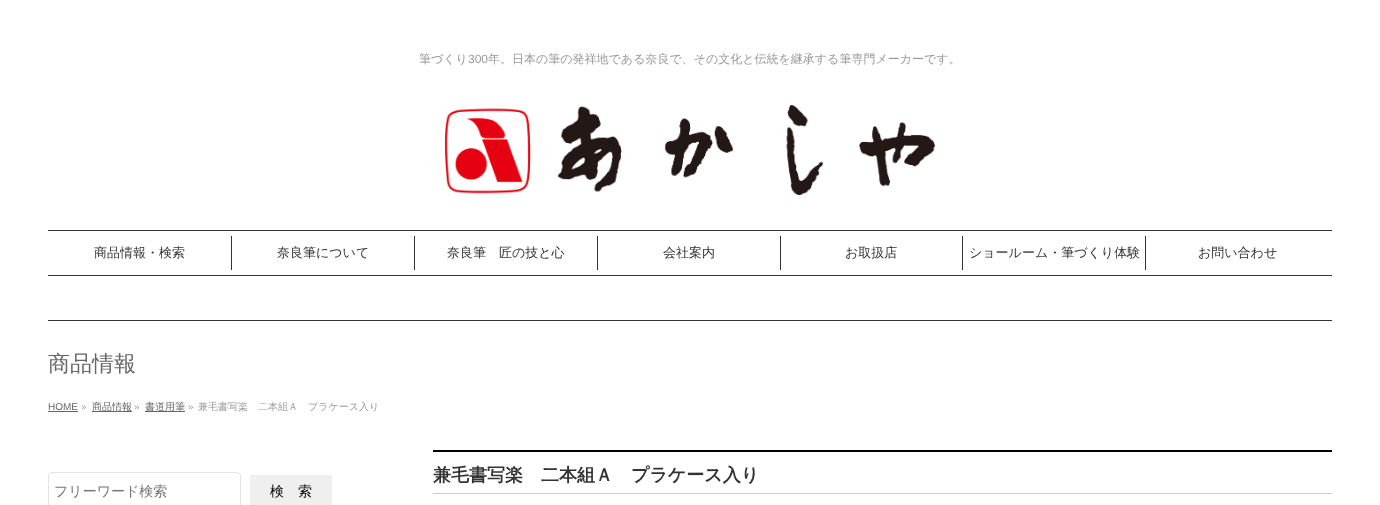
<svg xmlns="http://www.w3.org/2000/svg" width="1380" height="505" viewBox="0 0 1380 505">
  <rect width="100%" height="100%" fill="#fff"/>
  <image x="445" y="105" width="490" height="90" href="img/1.png"/>
  <path d="M48 230h1284v1H48z" fill="#333"/>
  <path d="M231 236h1v34H231z" fill="#333"/>
  <path d="M414 236h1v34H414z" fill="#333"/>
  <path d="M597 236h1v34H597z" fill="#333"/>
  <path d="M780 236h1v34H780z" fill="#333"/>
  <path d="M962 236h1v34H962z" fill="#333"/>
  <path d="M1145 236h1v34H1145z" fill="#333"/>
  <path d="M48 275h1284v1H48z" fill="#333"/>
  <path d="M48 320h1284v1H48z" fill="#333"/>
  <path d="M48 411h30v1H48z" fill="#666"/>
  <path d="M92 411h40v1H92z" fill="#666"/>
  <path d="M145 411h40v1H145z" fill="#666"/>
  <path d="M433 450h899v2H433z" fill="#000"/>
  <path d="M433 493h899v1H433z" fill="#ccc"/>
  <rect x="48.5" y="472.5" width="192" height="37" rx="3.5" fill="none" stroke="#e5e5e5"/>
  <path d="M250 475h82v30H250z" fill="#efefef"/>
  <text x="419" y="63" font-family="WenQuanYi Zen Hei" font-size="12" font-weight="500" fill="#999">筆づくり</text>
  <text x="468" y="63" font-family="Liberation Sans" font-size="12" fill="#999">300</text>
  <text x="488" y="63" font-family="WenQuanYi Zen Hei" font-size="12" font-weight="500" fill="#999">年。日本の筆の発祥地である奈良で、その文化と伝統を継承する筆専門メーカーです。</text>
  <g font-family="WenQuanYi Zen Hei" font-size="13" font-weight="500" fill="#333">
    <text x="94" y="257">商品情報・検索</text>
    <text x="277" y="257">奈良筆について</text>
    <text x="447" y="257">奈良筆　匠の技と心</text>
    <text x="663" y="257">会社案内</text>
    <text x="845" y="257">お取扱店</text>
    <text x="969" y="257">ショールーム・筆づくり体験</text>
    <text x="1198" y="257">お問い合わせ</text>
  </g>
  <text x="48" y="371" font-family="WenQuanYi Zen Hei" font-size="22" font-weight="500" fill="#666">商品情報</text>
  <text x="48" y="410" font-family="Liberation Sans" font-size="10" fill="#666">HOME</text>
  <text x="81" y="410" font-family="Liberation Sans" font-size="10" fill="#999">»</text>
  <text x="92" y="410" font-family="WenQuanYi Zen Hei" font-size="10" font-weight="500" fill="#666">商品情報</text>
  <text x="134" y="410" font-family="Liberation Sans" font-size="10" fill="#999">»</text>
  <text x="145" y="410" font-family="WenQuanYi Zen Hei" font-size="10" font-weight="500" fill="#666">書道用筆</text>
  <text x="188" y="410" font-family="Liberation Sans" font-size="10" fill="#999">»</text>
  <text x="198" y="410" font-family="WenQuanYi Zen Hei" font-size="10" font-weight="500" fill="#999">兼毛書写楽　二本組Ａ　プラケース入り</text>
  <text x="433" y="481" font-family="WenQuanYi Zen Hei" font-size="18" font-weight="bold" fill="#333">兼毛書写楽　二本組Ａ　プラケース入り</text>
  <text x="54" y="496" font-family="WenQuanYi Zen Hei" font-size="14" font-weight="500" fill="#757575">フリーワード検索</text>
  <text x="270" y="496" font-family="WenQuanYi Zen Hei" font-size="14" font-weight="500" fill="#000">検　索</text>
</svg>
